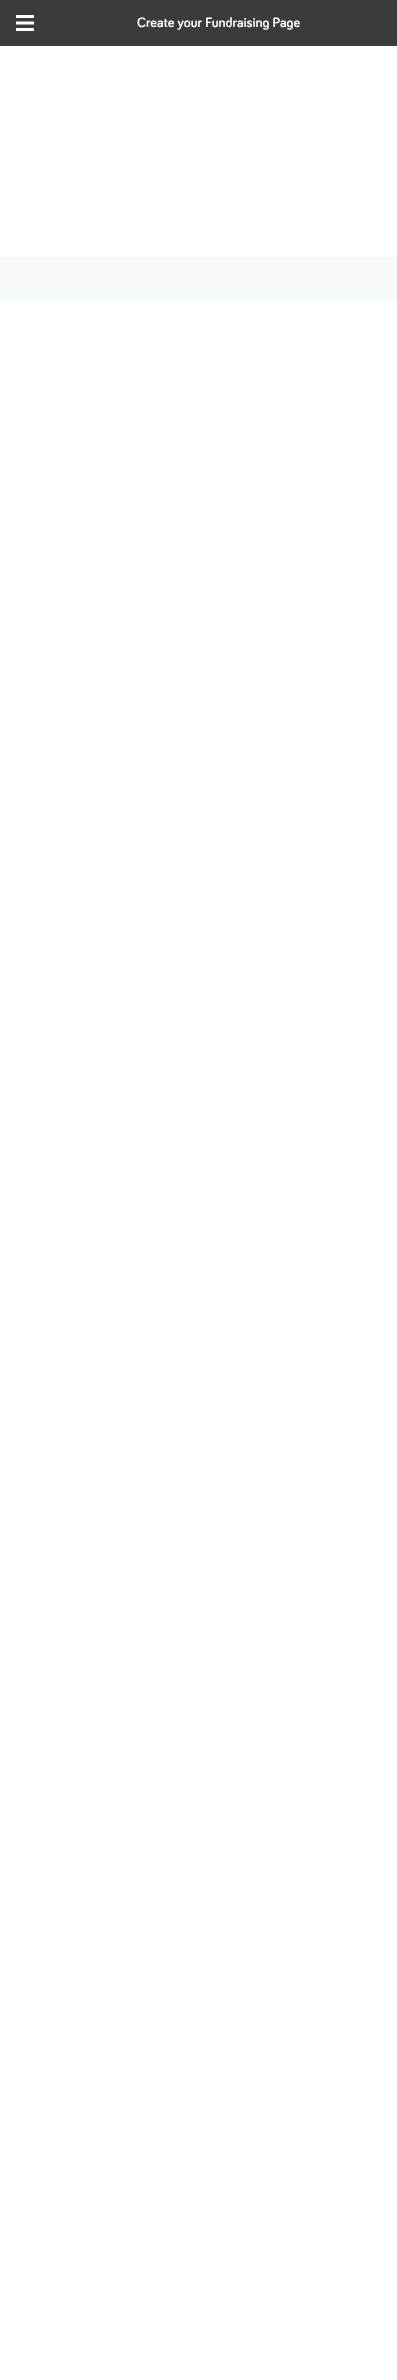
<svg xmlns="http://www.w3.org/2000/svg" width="397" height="2380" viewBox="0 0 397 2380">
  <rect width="100%" height="100%" fill="#fff"/>
  <path d="M0 0h397v46H0z" fill="#3b3b3b"/>
  <path d="M16 15h18v3H16z" fill="#fff"/>
  <path d="M16 23H34" fill="none" stroke="#fff" stroke-width="3"/>
  <path d="M16 28h18v3H16z" fill="#fff"/>
  <path d="M0 257h397v43H0z" fill="#f8f9fa"/>
  <text x="137" y="27" font-family="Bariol" font-size="14" font-weight="bold" fill="#fff">Create your Fundraising Page</text>
</svg>
